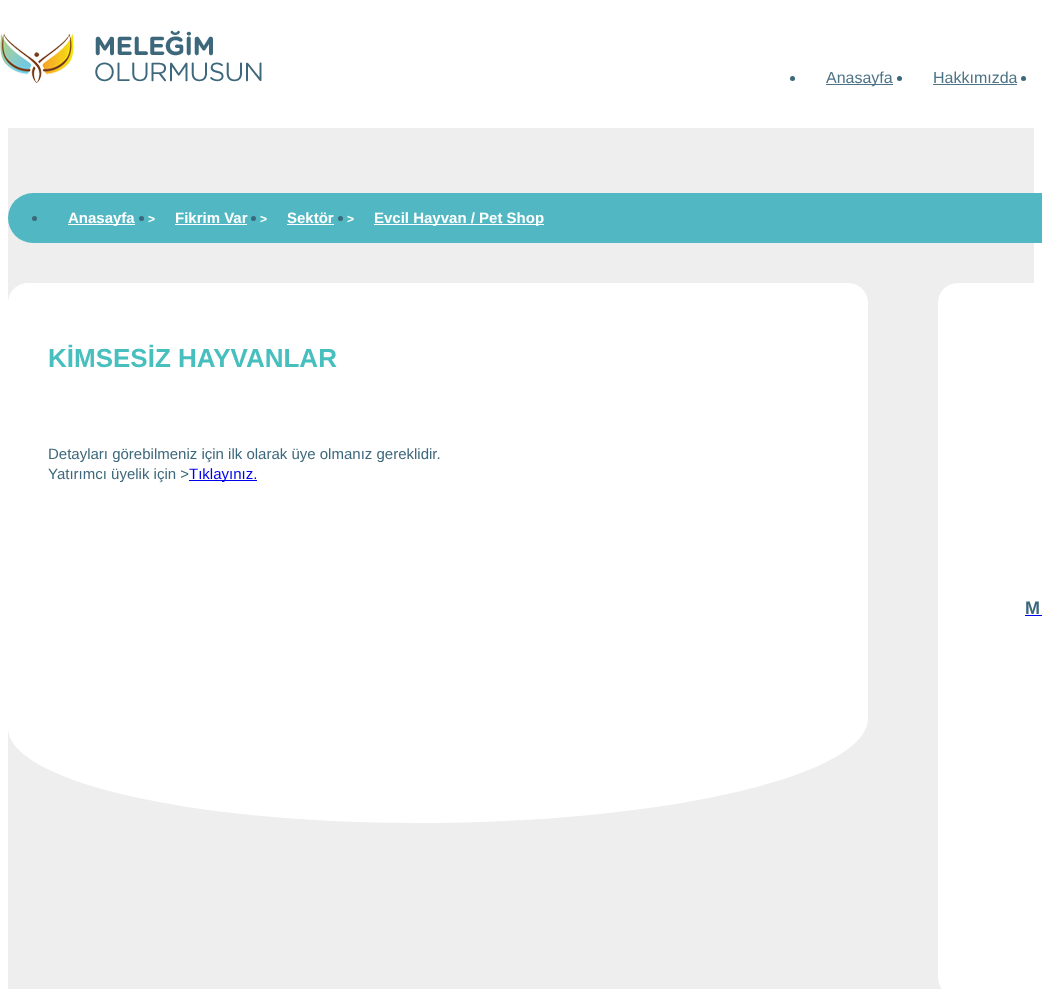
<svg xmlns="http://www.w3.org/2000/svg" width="1042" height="989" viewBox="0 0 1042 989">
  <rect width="100%" height="100%" fill="#fff"/>
  <image x="0" y="30" width="262" height="53" href="img/1.png"/>
  <circle cx="792.5" cy="78.5" r="2.5" fill="#3d677b"/>
  <path d="M826 84h67v1H826z" fill="#4d7386"/>
  <circle cx="899.5" cy="78.5" r="2.5" fill="#3d677b"/>
  <path d="M933 84h84v1H933z" fill="#4d7386"/>
  <circle cx="1023.5" cy="78.5" r="2.5" fill="#3d677b"/>
  <path d="M8 128h1026v861H8z" fill="#eee"/>
  <rect x="8" y="193" width="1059" height="50" rx="25" fill="#51b8c3"/>
  <circle cx="34.5" cy="218.5" r="2.5" fill="#3d677b"/>
  <path d="M68 224h67v1H68z" fill="#fff"/>
  <circle cx="141.5" cy="218.5" r="2.5" fill="#3d677b"/>
  <path d="M175 224h72v1H175z" fill="#fff"/>
  <circle cx="253.5" cy="218.5" r="2.5" fill="#3d677b"/>
  <path d="M287 224h47v1H287z" fill="#fff"/>
  <circle cx="340.5" cy="218.5" r="2.5" fill="#3d677b"/>
  <path d="M374 224h170v1H374z" fill="#fff"/>
  <path d="M28 283H848C859 283 868 292 868 303V713H8V303C8 292 17 283 28 283Z" fill="#fff"/>
  <path d="M189 480h68v1H189z" fill="#00e"/>
  <path d="M8 623H868V718C868 776 665 823 415 823C190 823 8 781 8 728Z" fill="#fff"/>
  <rect x="938" y="283" width="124" height="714" rx="20" fill="#fff"/>
  <path d="M1025 615h17v1H1025z" fill="#00e"/>
  <g font-family="Liberation Sans" font-size="16" fill="#4d7386">
    <text x="826" y="83">Anasayfa</text>
    <text x="933" y="83">Hakkımızda</text>
  </g>
  <text x="68" y="223" font-family="Liberation Sans" font-size="15" font-weight="bold" fill="#fff">Anasayfa</text>
  <text x="148" y="223" font-family="Liberation Sans" font-size="12" font-weight="bold" fill="#fff">&gt;</text>
  <text x="175" y="223" font-family="Liberation Sans" font-size="15" font-weight="bold" fill="#fff">Fikrim Var</text>
  <text x="260" y="223" font-family="Liberation Sans" font-size="12" font-weight="bold" fill="#fff">&gt;</text>
  <text x="287" y="223" font-family="Liberation Sans" font-size="15" font-weight="bold" fill="#fff">Sektör</text>
  <text x="347" y="223" font-family="Liberation Sans" font-size="12" font-weight="bold" fill="#fff">&gt;</text>
  <text x="374" y="223" font-family="Liberation Sans" font-size="15" font-weight="bold" fill="#fff">Evcil Hayvan / Pet Shop</text>
  <text x="48" y="367" font-family="Liberation Sans" font-size="26" font-weight="bold" fill="#47bfbe">KİMSESİZ HAYVANLAR</text>
  <g font-family="Liberation Sans" font-size="15" fill="#3d677b">
    <text x="48" y="459">Detayları görebilmeniz için ilk olarak üye olmanız gereklidir.</text>
    <text x="48" y="479">Yatırımcı üyelik için &gt;</text>
  </g>
  <text x="189" y="479" font-family="Liberation Sans" font-size="15" fill="#00e">Tıklayınız.</text>
  <text x="1025" y="614" font-family="Liberation Sans" font-size="18" font-weight="bold" fill="#3d677b">M</text>
</svg>
